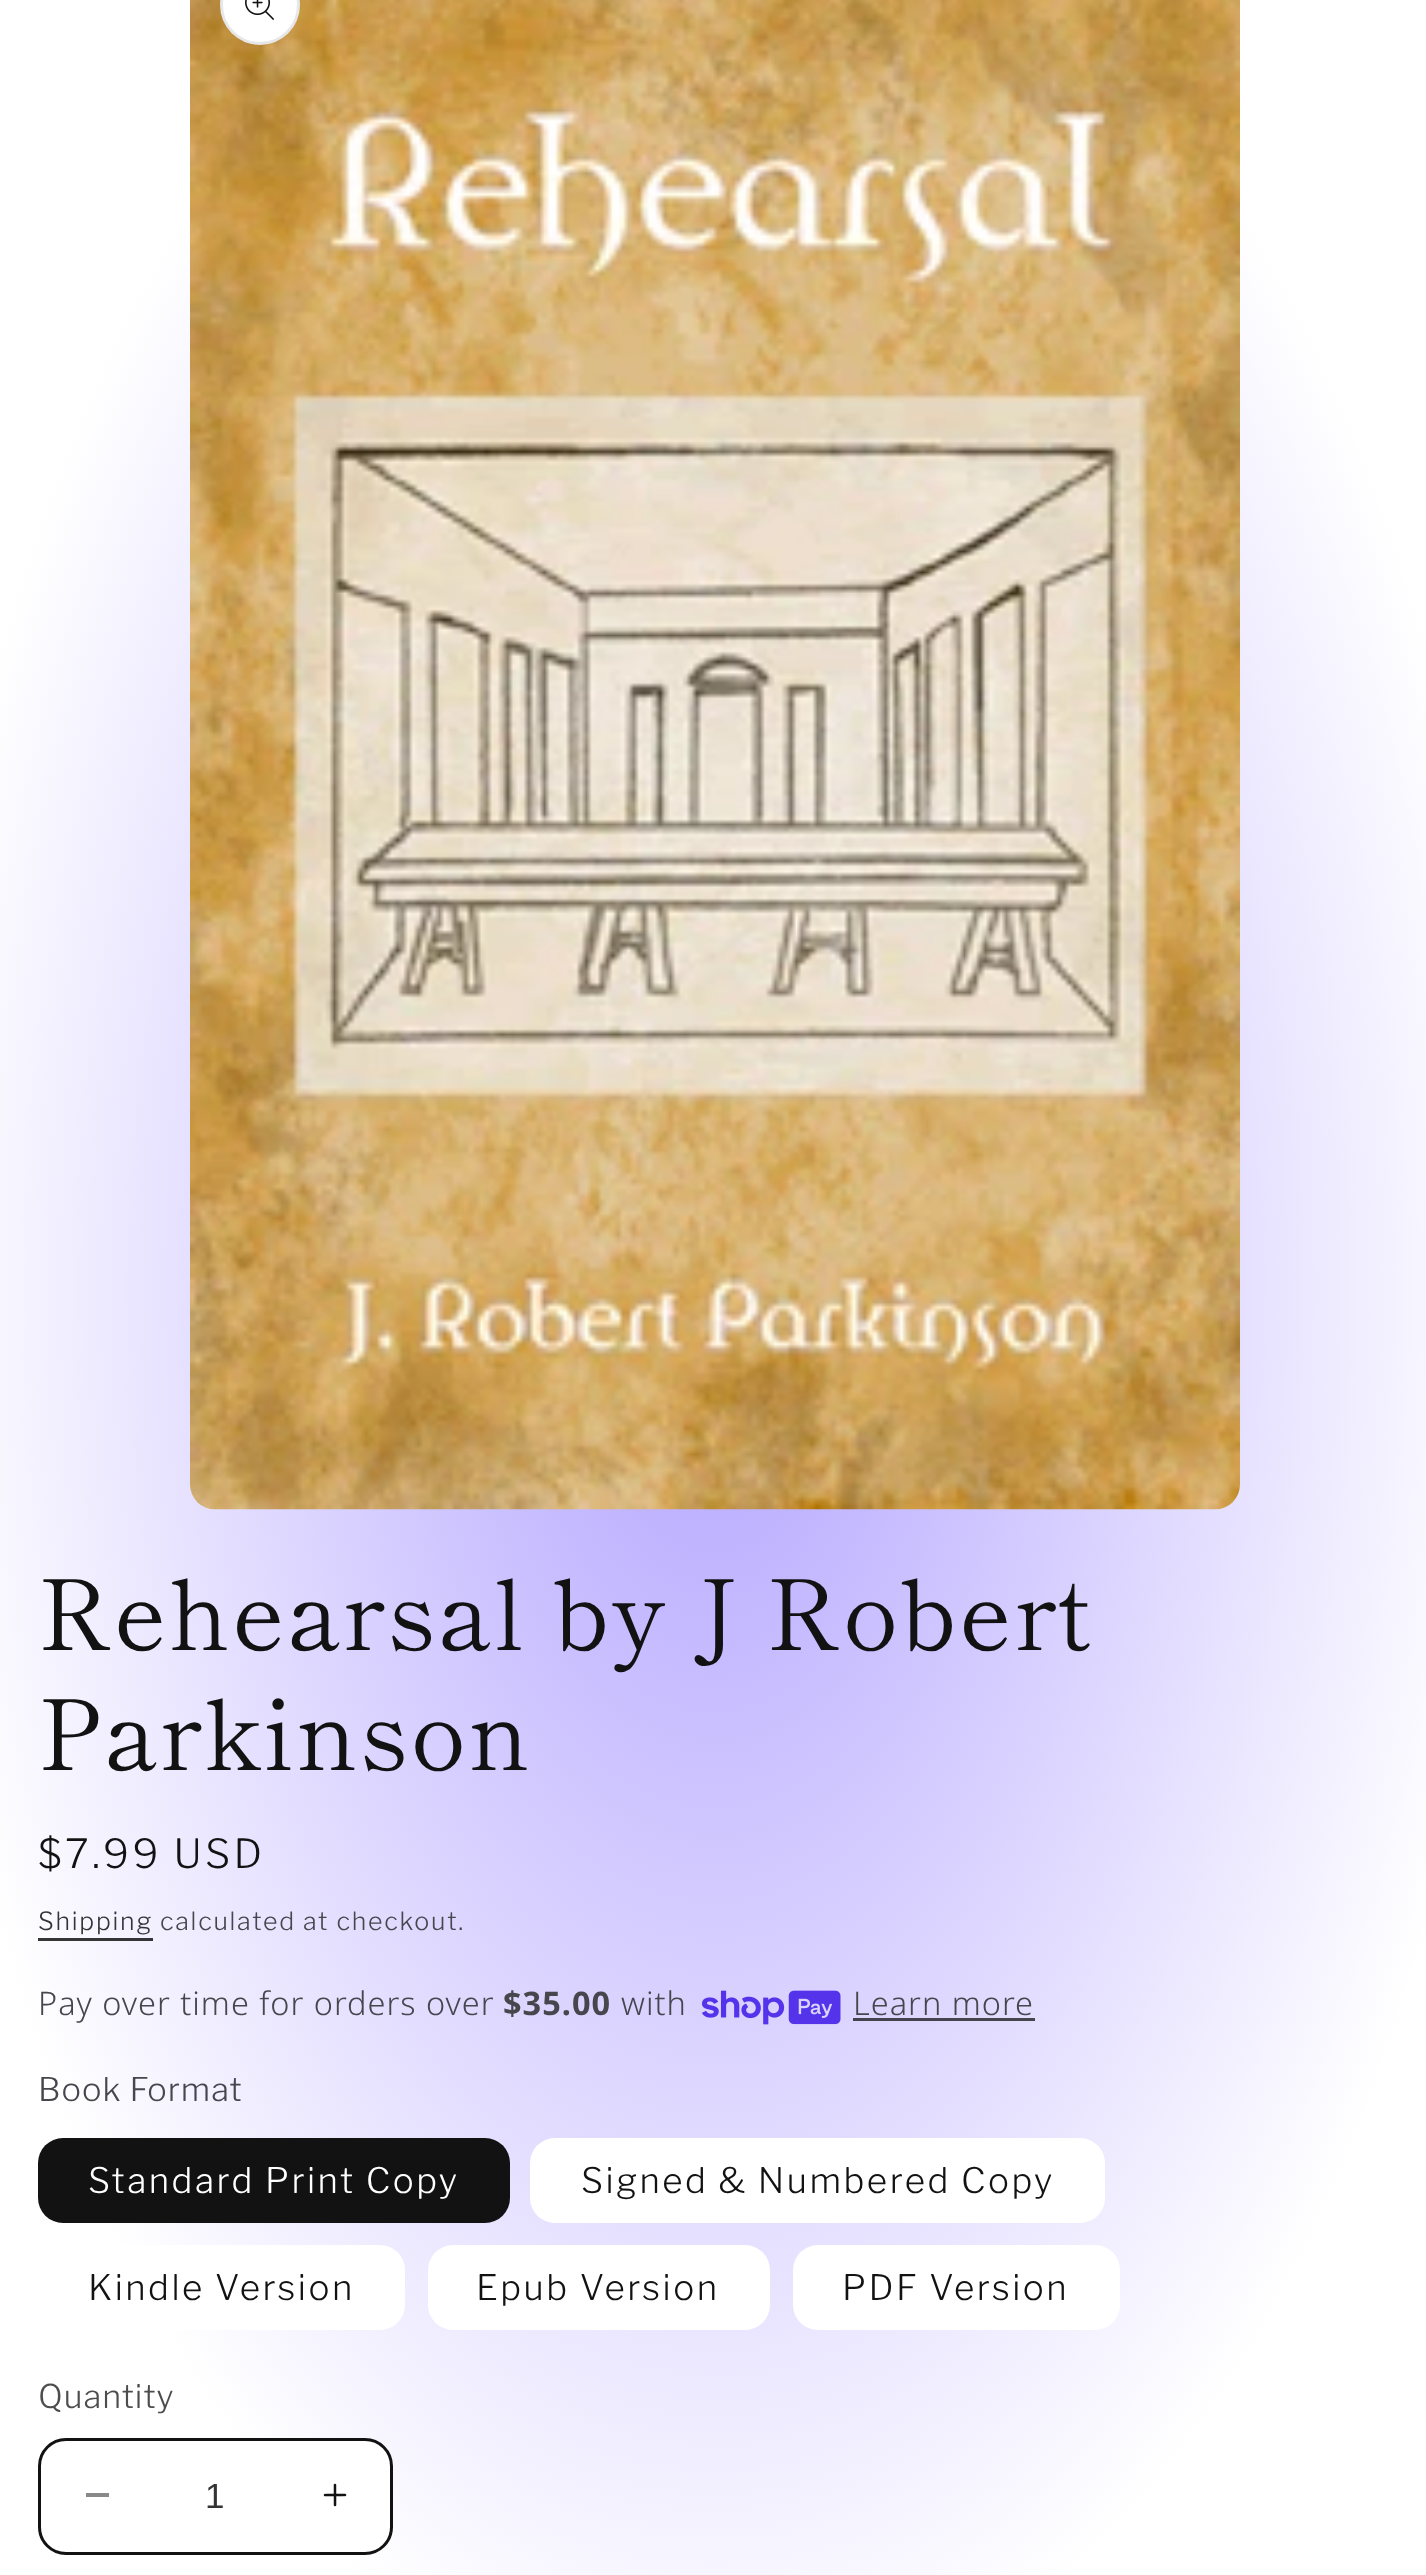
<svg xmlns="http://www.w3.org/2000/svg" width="1426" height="2575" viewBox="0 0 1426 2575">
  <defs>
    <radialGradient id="g1" gradientUnits="userSpaceOnUse" cx="0" cy="0" r="1" gradientTransform="matrix(1009 0 0 1821 714 1288)"><stop offset="0" stop-color="rgb(179,164,255)"/><stop offset="0.79" stop-color="rgb(255,255,255)"/><stop offset="0.97" stop-color="rgb(255,255,255)"/></radialGradient>
    <radialGradient id="g2" gradientUnits="userSpaceOnUse" cx="0" cy="0" r="1" gradientTransform="matrix(1009 0 0 1821 714 1288)"><stop offset="0" stop-color="rgb(58,55,77)"/><stop offset="0.79" stop-color="rgb(77,77,77)"/><stop offset="0.97" stop-color="rgb(77,77,77)"/></radialGradient>
    <radialGradient id="g3" gradientUnits="userSpaceOnUse" cx="0" cy="0" r="1" gradientTransform="matrix(1009 0 0 1821 714 1288)"><stop offset="0" stop-color="rgb(42,40,54)"/><stop offset="0.79" stop-color="rgb(54,54,54)"/><stop offset="0.97" stop-color="rgb(54,54,54)"/></radialGradient>
  </defs>
  <rect width="100%" height="100%" fill="rgb(255,255,255)"/>
  <rect x="0" y="0" width="1426" height="2575" fill="url(#g1)"/>
  <rect x="853" y="2018" width="182" height="3" fill="url(#g2)"/>
  <rect x="38" y="1938" width="115" height="3" fill="url(#g3)"/>
  <image x="190" y="0" width="1050" height="1510" href="pic2.png"/>
  <circle cx="260" cy="5" r="40" fill="rgb(255,255,255)"/>
  <circle cx="260" cy="5" r="38.5" fill="none" stroke="rgba(18,18,18,0.1)" stroke-width="3"/>
  <image x="245" y="0" width="29" height="20" href="pic1.png"/>
  <g font-family="Shippori Mincho" font-size="97.5" letter-spacing="1.95" fill="rgb(18,18,18)">
    <text>
      <tspan x="38" y="1650">Rehearsal by J Robert</tspan>
      <tspan x="38" y="1770">Parkinson</tspan>
    </text>
  </g>
  <text x="38" y="1868" font-family="Libre Franklin" font-size="40" font-weight="300" letter-spacing="3.25" fill="rgb(18,18,18)">$7.99 USD</text>
  <text x="38" y="1930" font-family="Libre Franklin" font-size="25" font-weight="300" letter-spacing="1.75" fill="rgb(52,52,54)">Shipping</text>
  <text x="160" y="1930" font-family="Libre Franklin" font-size="25" font-weight="300" letter-spacing="1.75" fill="rgb(71,70,77)">calculated at checkout.</text>
  <text x="38" y="2015" font-family="Noto Sans" font-size="32.5" font-weight="300" letter-spacing="1" fill="rgb(71,70,77)">Pay over time for orders over</text>
  <text x="503" y="2015" font-family="Noto Sans" font-size="32.5" font-weight="bold" letter-spacing="1" fill="rgb(71,70,77)">$35.00</text>
  <text x="621" y="2015" font-family="Noto Sans" font-size="32.5" font-weight="300" letter-spacing="1" fill="rgb(71,70,77)">with</text>
  <image x="702" y="1990" width="139" height="35" href="pic3.png"/>
  <text x="853" y="2015" font-family="Noto Sans" font-size="32.5" font-weight="300" letter-spacing="1" fill="rgb(71,70,77)">Learn more</text>
  <text x="38" y="2101" font-family="Libre Franklin" font-size="32.5" font-weight="300" letter-spacing="1" fill="rgb(71,70,77)">Book Format</text>
  <rect x="38" y="2138" width="472" height="85" rx="25" fill="rgb(18,18,18)"/>
  <text x="88" y="2193" font-family="Libre Franklin" font-size="35" font-weight="300" letter-spacing="2.5" fill="rgb(255,255,255)">Standard Print Copy</text>
  <rect x="530" y="2138" width="575" height="85" rx="25" fill="rgb(255,255,255)"/>
  <text x="581" y="2193" font-family="Libre Franklin" font-size="35" font-weight="300" letter-spacing="2.5" fill="rgb(18,18,18)">Signed &amp; Numbered Copy</text>
  <rect x="38" y="2245" width="367" height="85" rx="25" fill="rgb(255,255,255)"/>
  <text x="88" y="2300" font-family="Libre Franklin" font-size="35" font-weight="300" letter-spacing="2.5" fill="rgb(18,18,18)">Kindle Version</text>
  <rect x="428" y="2245" width="342" height="85" rx="25" fill="rgb(255,255,255)"/>
  <text x="476" y="2300" font-family="Libre Franklin" font-size="35" font-weight="300" letter-spacing="2.5" fill="rgb(18,18,18)">Epub Version</text>
  <rect x="793" y="2245" width="327" height="85" rx="25" fill="rgb(255,255,255)"/>
  <text x="842" y="2300" font-family="Libre Franklin" font-size="35" font-weight="300" letter-spacing="2.5" fill="rgb(18,18,18)">PDF Version</text>
  <text x="38" y="2408" font-family="Libre Franklin" font-size="32.5" font-weight="300" letter-spacing="1" fill="rgb(77,77,77)">Quantity</text>
  <rect x="38" y="2438" width="355" height="117" rx="28" fill="rgb(255,255,255)"/>
  <rect x="86" y="2493" width="23" height="4" fill="rgb(137,137,137)"/>
  <image x="323" y="2483" width="24" height="24" href="pic4.png"/>
  <rect x="39.5" y="2439.5" width="352" height="114" rx="26.5" fill="none" stroke="rgb(18,18,18)" stroke-width="3"/>
  <text x="205" y="2508" font-family="Liberation Sans" font-size="35" fill="rgb(52,52,54)">1</text>
</svg>
